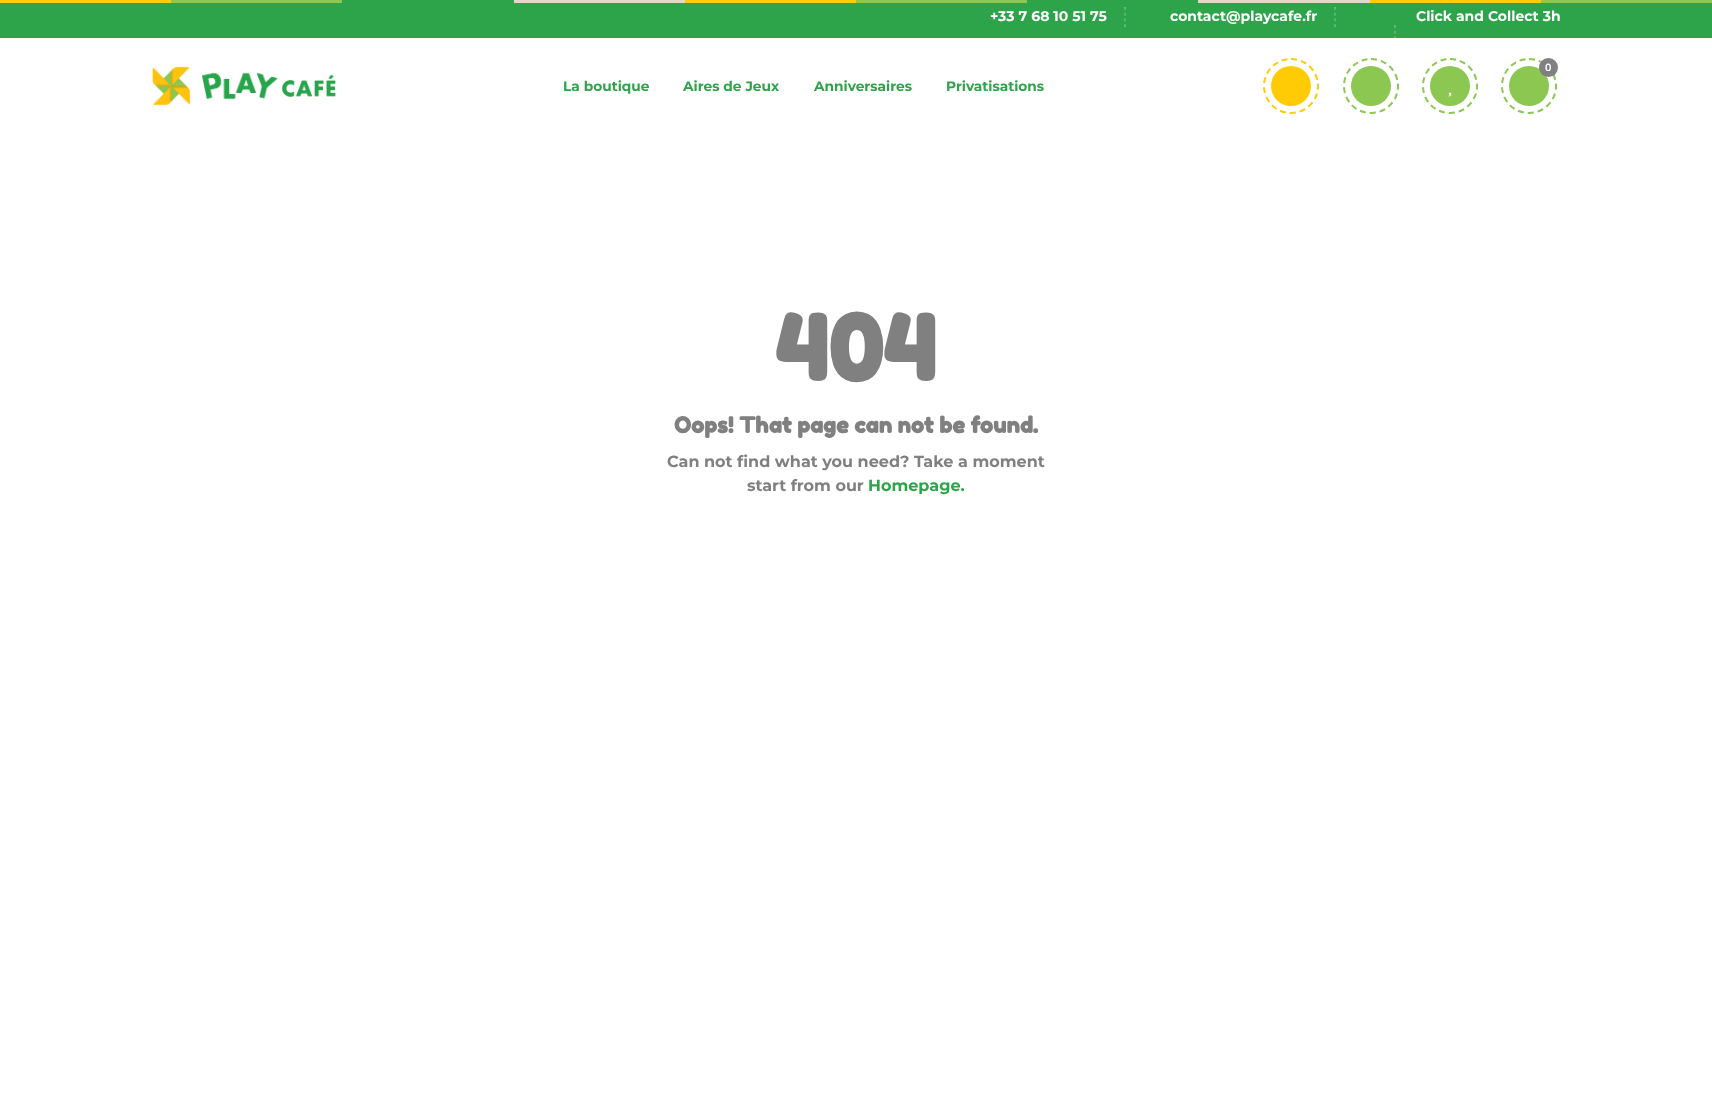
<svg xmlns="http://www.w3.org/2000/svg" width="1712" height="1119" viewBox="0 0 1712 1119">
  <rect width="100%" height="100%" fill="rgb(255,255,255)"/>
  <rect x="0" y="0" width="171" height="3" fill="rgb(255,203,5)"/>
  <rect x="171" y="0" width="171" height="3" fill="rgb(139,199,81)"/>
  <rect x="342" y="0" width="172" height="3" fill="rgb(45,164,74)"/>
  <rect x="514" y="0" width="171" height="3" fill="rgb(226,218,201)"/>
  <rect x="685" y="0" width="171" height="3" fill="rgb(255,203,5)"/>
  <rect x="856" y="0" width="171" height="3" fill="rgb(139,199,81)"/>
  <rect x="1027" y="0" width="171" height="3" fill="rgb(45,164,74)"/>
  <rect x="1198" y="0" width="172" height="3" fill="rgb(226,218,201)"/>
  <rect x="1370" y="0" width="171" height="3" fill="rgb(255,203,5)"/>
  <rect x="1541" y="0" width="171" height="3" fill="rgb(139,199,81)"/>
  <rect x="0" y="3" width="1712" height="35" fill="rgb(45,164,74)"/>
  <text x="990" y="21" font-family="Montserrat" font-size="14" font-weight="100" fill="rgb(255,255,255)">+33 7 68 10 51 75</text>
  <path d="M1124 7H1126L1125 8Z" fill="rgb(87,182,110)"/>
  <path d="M1125.5 7V27" fill="none" stroke="rgba(255,255,255,0.2)" stroke-dasharray="3 2.67"/>
  <path d="M1126 27H1124L1125 26Z" fill="rgba(255,255,255,0.2)"/>
  <path d="M1124.5 7V27" fill="none" stroke="rgba(255,255,255,0.2)" stroke-dasharray="3 2.67"/>
  <text x="1170" y="21" font-family="Montserrat" font-size="14" font-weight="100" fill="rgb(255,255,255)">contact@playcafe.fr</text>
  <path d="M1334 7H1336L1335 8Z" fill="rgb(87,182,110)"/>
  <path d="M1335.5 7V27" fill="none" stroke="rgba(255,255,255,0.2)" stroke-dasharray="3 2.67"/>
  <path d="M1336 27H1334L1335 26Z" fill="rgba(255,255,255,0.2)"/>
  <path d="M1334.5 7V27" fill="none" stroke="rgba(255,255,255,0.2)" stroke-dasharray="3 2.67"/>
  <text x="1416" y="21" font-family="Montserrat" font-size="14" font-weight="100" fill="rgb(255,255,255)">Click and Collect 3h</text>
  <path d="M1394 25H1396L1395 26Z" fill="rgb(87,182,110)"/>
  <path d="M1395.5 25V45M1394.5 25V45" fill="none" stroke="rgba(255,255,255,0.2)" stroke-dasharray="3 2.67"/>
  <image x="152" y="66" width="184" height="40" href="pic1.png"/>
  <g font-family="Montserrat" font-size="13.75" font-weight="100" fill="rgb(45,164,74)">
    <text x="563" y="91">La boutique</text>
    <text x="683" y="91">Aires de Jeux</text>
    <text x="814" y="91">Anniversaires</text>
    <text x="946" y="91">Privatisations</text>
  </g>
  <circle cx="1291" cy="86" r="20" fill="rgb(255,203,5)"/>
  <path d="M1291 59C1306 59 1318 71 1318 86C1318 101 1306 113 1291 113C1276 113 1264 101 1264 86C1264 71 1276 59 1291 59Z" fill="none" stroke="rgb(255,203,5)" stroke-width="2" stroke-dasharray="6 4"/>
  <circle cx="1371" cy="86" r="20" fill="rgb(139,199,81)"/>
  <path d="M1371 59C1386 59 1398 71 1398 86C1398 101 1386 113 1371 113C1356 113 1344 101 1344 86C1344 71 1356 59 1371 59Z" fill="none" stroke="rgb(139,199,81)" stroke-width="2" stroke-dasharray="6 4"/>
  <circle cx="1450" cy="86" r="20" fill="rgb(139,199,81)"/>
  <image x="1448" y="92" width="4" height="5" href="pic2.png"/>
  <path d="M1450 59C1465 59 1477 71 1477 86C1477 101 1465 113 1450 113C1435 113 1423 101 1423 86C1423 71 1435 59 1450 59Z" fill="none" stroke="rgb(139,199,81)" stroke-width="2" stroke-dasharray="6 4"/>
  <circle cx="1529" cy="86" r="20" fill="rgb(139,199,81)"/>
  <path d="M1529 59C1544 59 1556 71 1556 86C1556 101 1544 113 1529 113C1514 113 1502 101 1502 86C1502 71 1514 59 1529 59Z" fill="none" stroke="rgb(139,199,81)" stroke-width="2" stroke-dasharray="6 4"/>
  <circle cx="1548.5" cy="67.5" r="9.5" fill="rgb(128,128,128)"/>
  <text x="1545" y="71" font-family="'Rounded Mplus 1c'" font-size="10" font-weight="bold" fill="rgb(255,255,255)">0</text>
  <text x="775" y="381" font-family="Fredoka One" font-size="90" font-weight="bold" fill="rgb(128,128,128)">404</text>
  <text x="674" y="433" font-family="Fredoka One" font-size="22" font-weight="bold" fill="rgb(128,128,128)">Oops! That page can not be found.</text>
  <g font-family="Montserrat" font-size="16" font-weight="100" fill="rgb(128,128,128)">
    <text x="667" y="467">Can not find what you need? Take a moment</text>
    <text x="747" y="491">start from our</text>
  </g>
  <text x="868" y="491" font-family="Montserrat" font-size="16" font-weight="100" fill="rgb(45,164,74)">Homepage.</text>
</svg>
